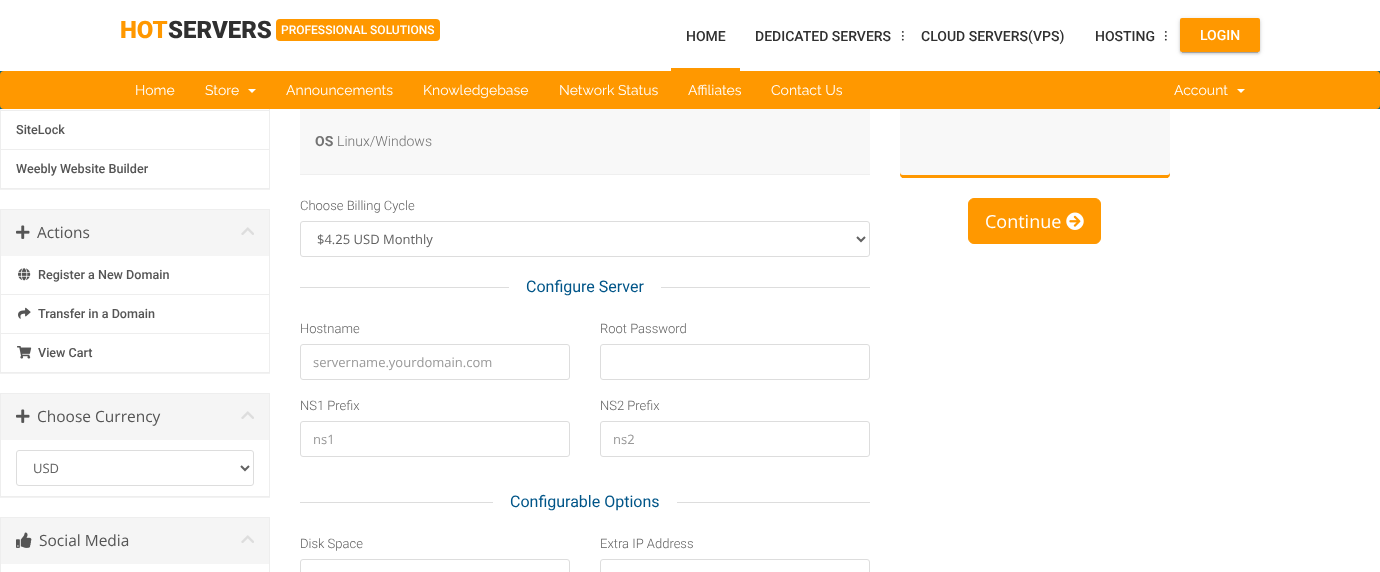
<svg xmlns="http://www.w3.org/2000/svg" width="1380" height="572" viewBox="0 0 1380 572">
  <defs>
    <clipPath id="clip1"><rect x="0" y="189" width="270" height="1"/></clipPath>
    <clipPath id="clip2"><rect x="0" y="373" width="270" height="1"/></clipPath>
    <clipPath id="clip3"><rect x="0" y="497" width="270" height="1"/></clipPath>
  </defs>
  <rect width="100%" height="100%" fill="rgb(255,255,255)"/>
  <g clip-path="url(#clip1)">
    <rect x="0" y="-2" width="270" height="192" fill="rgba(0,0,0,0.05)" filter="blur(0.5px)"/>
  </g>
  <rect x="0.5" y="-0.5" width="269" height="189" fill="none" stroke="rgb(238,238,238)"/>
  <rect x="900" y="15" width="270" height="163" rx="4" fill="rgb(255,152,0)"/>
  <rect x="0" y="0" width="1170" height="71" fill="rgb(255,255,255)"/>
  <text x="120" y="38" font-family="Roboto" font-size="24" font-weight="900" fill="rgb(255,152,0)">HOT</text>
  <text x="168" y="38" font-family="Roboto" font-size="24" font-weight="900" fill="rgb(48,48,48)">SERVERS</text>
  <rect x="276" y="19" width="164" height="22" rx="4" fill="rgb(255,152,0)"/>
  <text x="281" y="34" font-family="Roboto" font-size="12" font-weight="500" fill="rgb(255,255,255)">PROFESSIONAL SOLUTIONS</text>
  <rect x="671" y="68" width="69" height="3" fill="rgb(255,152,0)"/>
  <g font-family="Roboto" font-size="14" font-weight="500" fill="rgb(48,48,48)">
    <text x="686" y="41">HOME</text>
    <text x="755" y="41">DEDICATED SERVERS</text>
    <text x="902" y="30" transform="rotate(90 902 30)">...</text>
    <text x="921" y="41">CLOUD SERVERS(VPS)</text>
    <text x="1095" y="41">HOSTING</text>
    <text x="1165" y="30" transform="rotate(90 1165 30)">...</text>
  </g>
  <rect x="1180" y="19" width="80" height="34" rx="2" fill="rgba(0,0,0,0.12)" filter="blur(2.5px)"/>
  <rect x="1182" y="23" width="76" height="30" fill="rgba(0,0,0,0.2)" filter="blur(0.5px)"/>
  <rect x="1180" y="20" width="80" height="34" rx="2" fill="rgba(0,0,0,0.14)" filter="blur(1px)"/>
  <rect x="1180" y="18" width="80" height="34" rx="2" fill="rgb(255,152,0)"/>
  <text x="1200" y="40" font-family="Roboto" font-size="14" font-weight="500" fill="rgb(255,255,255)">LOGIN</text>
  <rect x="900" y="75" width="270" height="100" rx="3" fill="rgb(248,248,248)"/>
  <rect x="0" y="71" width="1380" height="38" fill="rgb(0,102,135)"/>
  <rect x="0" y="71" width="1380" height="38" rx="4" fill="rgb(255,152,0)"/>
  <g font-family="Raleway" font-size="14" fill="rgb(255,255,255)">
    <text x="135" y="95">Home</text>
    <text x="205" y="95">Store</text>
  </g>
  <path d="M248 89H256L252 93Z" fill="rgb(255,255,255)"/>
  <g font-family="Raleway" font-size="14" fill="rgb(255,255,255)">
    <text x="286" y="95">Announcements</text>
    <text x="423" y="95">Knowledgebase</text>
    <text x="559" y="95">Network Status</text>
    <text x="688" y="95">Affiliates</text>
    <text x="771" y="95">Contact Us</text>
    <text x="1174" y="95">Account</text>
  </g>
  <path d="M1237 89H1245L1241 93Z" fill="rgb(255,255,255)"/>
  <rect x="1" y="110" width="268" height="1" fill="rgb(238,238,238)"/>
  <text x="16" y="134" font-family="Roboto" font-size="12.6" font-weight="500" fill="rgb(85,85,85)">SiteLock</text>
  <rect x="1" y="149" width="268" height="1" fill="rgb(238,238,238)"/>
  <text x="16" y="173" font-family="Roboto" font-size="12.6" font-weight="500" fill="rgb(85,85,85)">Weebly Website Builder</text>
  <g clip-path="url(#clip2)">
    <rect x="0" y="210" width="270" height="164" fill="rgba(0,0,0,0.05)" filter="blur(0.5px)"/>
  </g>
  <rect x="0.5" y="209.5" width="269" height="163" fill="none" stroke="rgb(238,238,238)"/>
  <rect x="1" y="210" width="268" height="46" fill="rgb(245,245,245)"/>
  <image x="16" y="225" width="14" height="14" href="pic1.png"/>
  <text x="37" y="238" font-family="Open Sans" font-size="15.5" fill="rgb(85,85,85)">Actions</text>
  <image x="241" y="227" width="13" height="8" href="pic2.png"/>
  <rect x="1" y="294" width="268" height="1" fill="rgb(238,238,238)"/>
  <image x="18" y="268" width="13" height="13" href="pic3.png"/>
  <text x="38" y="279" font-family="Roboto" font-size="12.6" font-weight="500" fill="rgb(85,85,85)">Register a New Domain</text>
  <image x="18" y="307" width="13" height="12" href="pic4.png"/>
  <text x="38" y="318" font-family="Roboto" font-size="12.6" font-weight="500" fill="rgb(85,85,85)">Transfer in a Domain</text>
  <rect x="1" y="333" width="268" height="1" fill="rgb(238,238,238)"/>
  <image x="17" y="346" width="15" height="13" href="pic5.png"/>
  <text x="38" y="357" font-family="Roboto" font-size="12.6" font-weight="500" fill="rgb(85,85,85)">View Cart</text>
  <g clip-path="url(#clip3)">
    <rect x="0" y="394" width="270" height="104" fill="rgba(0,0,0,0.05)" filter="blur(0.5px)"/>
  </g>
  <rect x="0.5" y="393.5" width="269" height="103" fill="none" stroke="rgb(238,238,238)"/>
  <rect x="1" y="394" width="268" height="46" fill="rgb(245,245,245)"/>
  <image x="16" y="409" width="14" height="14" href="pic1.png"/>
  <text x="37" y="422" font-family="Open Sans" font-size="15.5" fill="rgb(85,85,85)">Choose Currency</text>
  <image x="241" y="411" width="13" height="8" href="pic2.png"/>
  <rect x="16.5" y="450.5" width="237" height="35" rx="2.5" fill="none" stroke="rgb(221,221,221)"/>
  <path d="M241 466L245 470L249 466" fill="none" stroke="rgb(98,98,98)" stroke-width="2"/>
  <text x="33" y="473" font-family="Open Sans" font-size="13" fill="rgb(98,98,98)">USD</text>
  <rect x="0.5" y="517.5" width="269" height="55" fill="none" stroke="rgb(238,238,238)"/>
  <rect x="1" y="518" width="268" height="46" fill="rgb(245,245,245)"/>
  <image x="16" y="532" width="16" height="16" href="pic6.png"/>
  <text x="39" y="546" font-family="Open Sans" font-size="15.5" fill="rgb(85,85,85)">Social Media</text>
  <image x="241" y="535" width="13" height="8" href="pic2.png"/>
  <rect x="300" y="109" width="570" height="65" fill="rgb(248,248,248)"/>
  <rect x="300" y="174" width="570" height="1" fill="rgb(239,239,239)"/>
  <text x="315" y="146" font-family="Roboto" font-size="14" font-weight="bold" fill="rgb(115,115,115)">OS</text>
  <text x="337" y="146" font-family="Roboto" font-size="14" font-weight="300" fill="rgb(115,115,115)">Linux/Windows</text>
  <text x="300" y="210" font-family="Roboto" font-size="13" font-weight="300" fill="rgb(98,98,98)">Choose Billing Cycle</text>
  <rect x="300.5" y="221.5" width="569" height="35" rx="2.5" fill="none" stroke="rgb(221,221,221)"/>
  <path d="M857 237L861 241L865 237" fill="none" stroke="rgb(98,98,98)" stroke-width="2"/>
  <text x="317" y="244" font-family="Open Sans" font-size="13" fill="rgb(98,98,98)">$4.25 USD Monthly</text>
  <rect x="300" y="287" width="570" height="1" fill="rgb(221,221,221)"/>
  <rect x="509" y="287" width="152" height="1" fill="rgb(255,255,255)"/>
  <text x="526" y="292" font-family="Roboto" font-size="16" fill="rgb(0,85,136)">Configure Server</text>
  <text x="300" y="333" font-family="Roboto" font-size="13" font-weight="300" fill="rgb(98,98,98)">Hostname</text>
  <rect x="300.5" y="344.5" width="269" height="35" rx="2.5" fill="none" stroke="rgb(221,221,221)"/>
  <text x="313" y="367" font-family="Open Sans" font-size="13" fill="rgb(153,153,153)">servername.yourdomain.com</text>
  <text x="600" y="333" font-family="Roboto" font-size="13" font-weight="300" fill="rgb(98,98,98)">Root Password</text>
  <rect x="600.5" y="344.5" width="269" height="35" rx="2.5" fill="none" stroke="rgb(221,221,221)"/>
  <text x="300" y="410" font-family="Roboto" font-size="13" font-weight="300" fill="rgb(98,98,98)">NS1 Prefix</text>
  <rect x="300.5" y="421.5" width="269" height="35" rx="2.5" fill="none" stroke="rgb(221,221,221)"/>
  <text x="313" y="444" font-family="Open Sans" font-size="13" fill="rgb(153,153,153)">ns1</text>
  <text x="600" y="410" font-family="Roboto" font-size="13" font-weight="300" fill="rgb(98,98,98)">NS2 Prefix</text>
  <rect x="600.5" y="421.5" width="269" height="35" rx="2.5" fill="none" stroke="rgb(221,221,221)"/>
  <text x="613" y="444" font-family="Open Sans" font-size="13" fill="rgb(153,153,153)">ns2</text>
  <rect x="300" y="502" width="570" height="1" fill="rgb(221,221,221)"/>
  <rect x="493" y="502" width="184" height="1" fill="rgb(255,255,255)"/>
  <text x="510" y="507" font-family="Roboto" font-size="16" fill="rgb(0,85,136)">Configurable Options</text>
  <text x="300" y="548" font-family="Roboto" font-size="13" font-weight="300" fill="rgb(98,98,98)">Disk Space</text>
  <rect x="300.5" y="559.5" width="269" height="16" rx="2.5" fill="none" stroke="rgb(221,221,221)"/>
  <text x="600" y="548" font-family="Roboto" font-size="13" font-weight="300" fill="rgb(98,98,98)">Extra IP Address</text>
  <rect x="600.5" y="559.5" width="269" height="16" rx="2.5" fill="none" stroke="rgb(221,221,221)"/>
  <rect x="902" y="177" width="266" height="1" fill="rgb(255,152,0)"/>
  <rect x="968.5" y="198.5" width="132" height="45" rx="5.5" fill="rgb(255,152,0)" stroke="rgb(255,152,0)"/>
  <text x="985" y="228" font-family="Open Sans" font-size="18" fill="rgb(255,255,255)">Continue</text>
  <image x="1066" y="212" width="18" height="18" href="pic7.png"/>
</svg>
